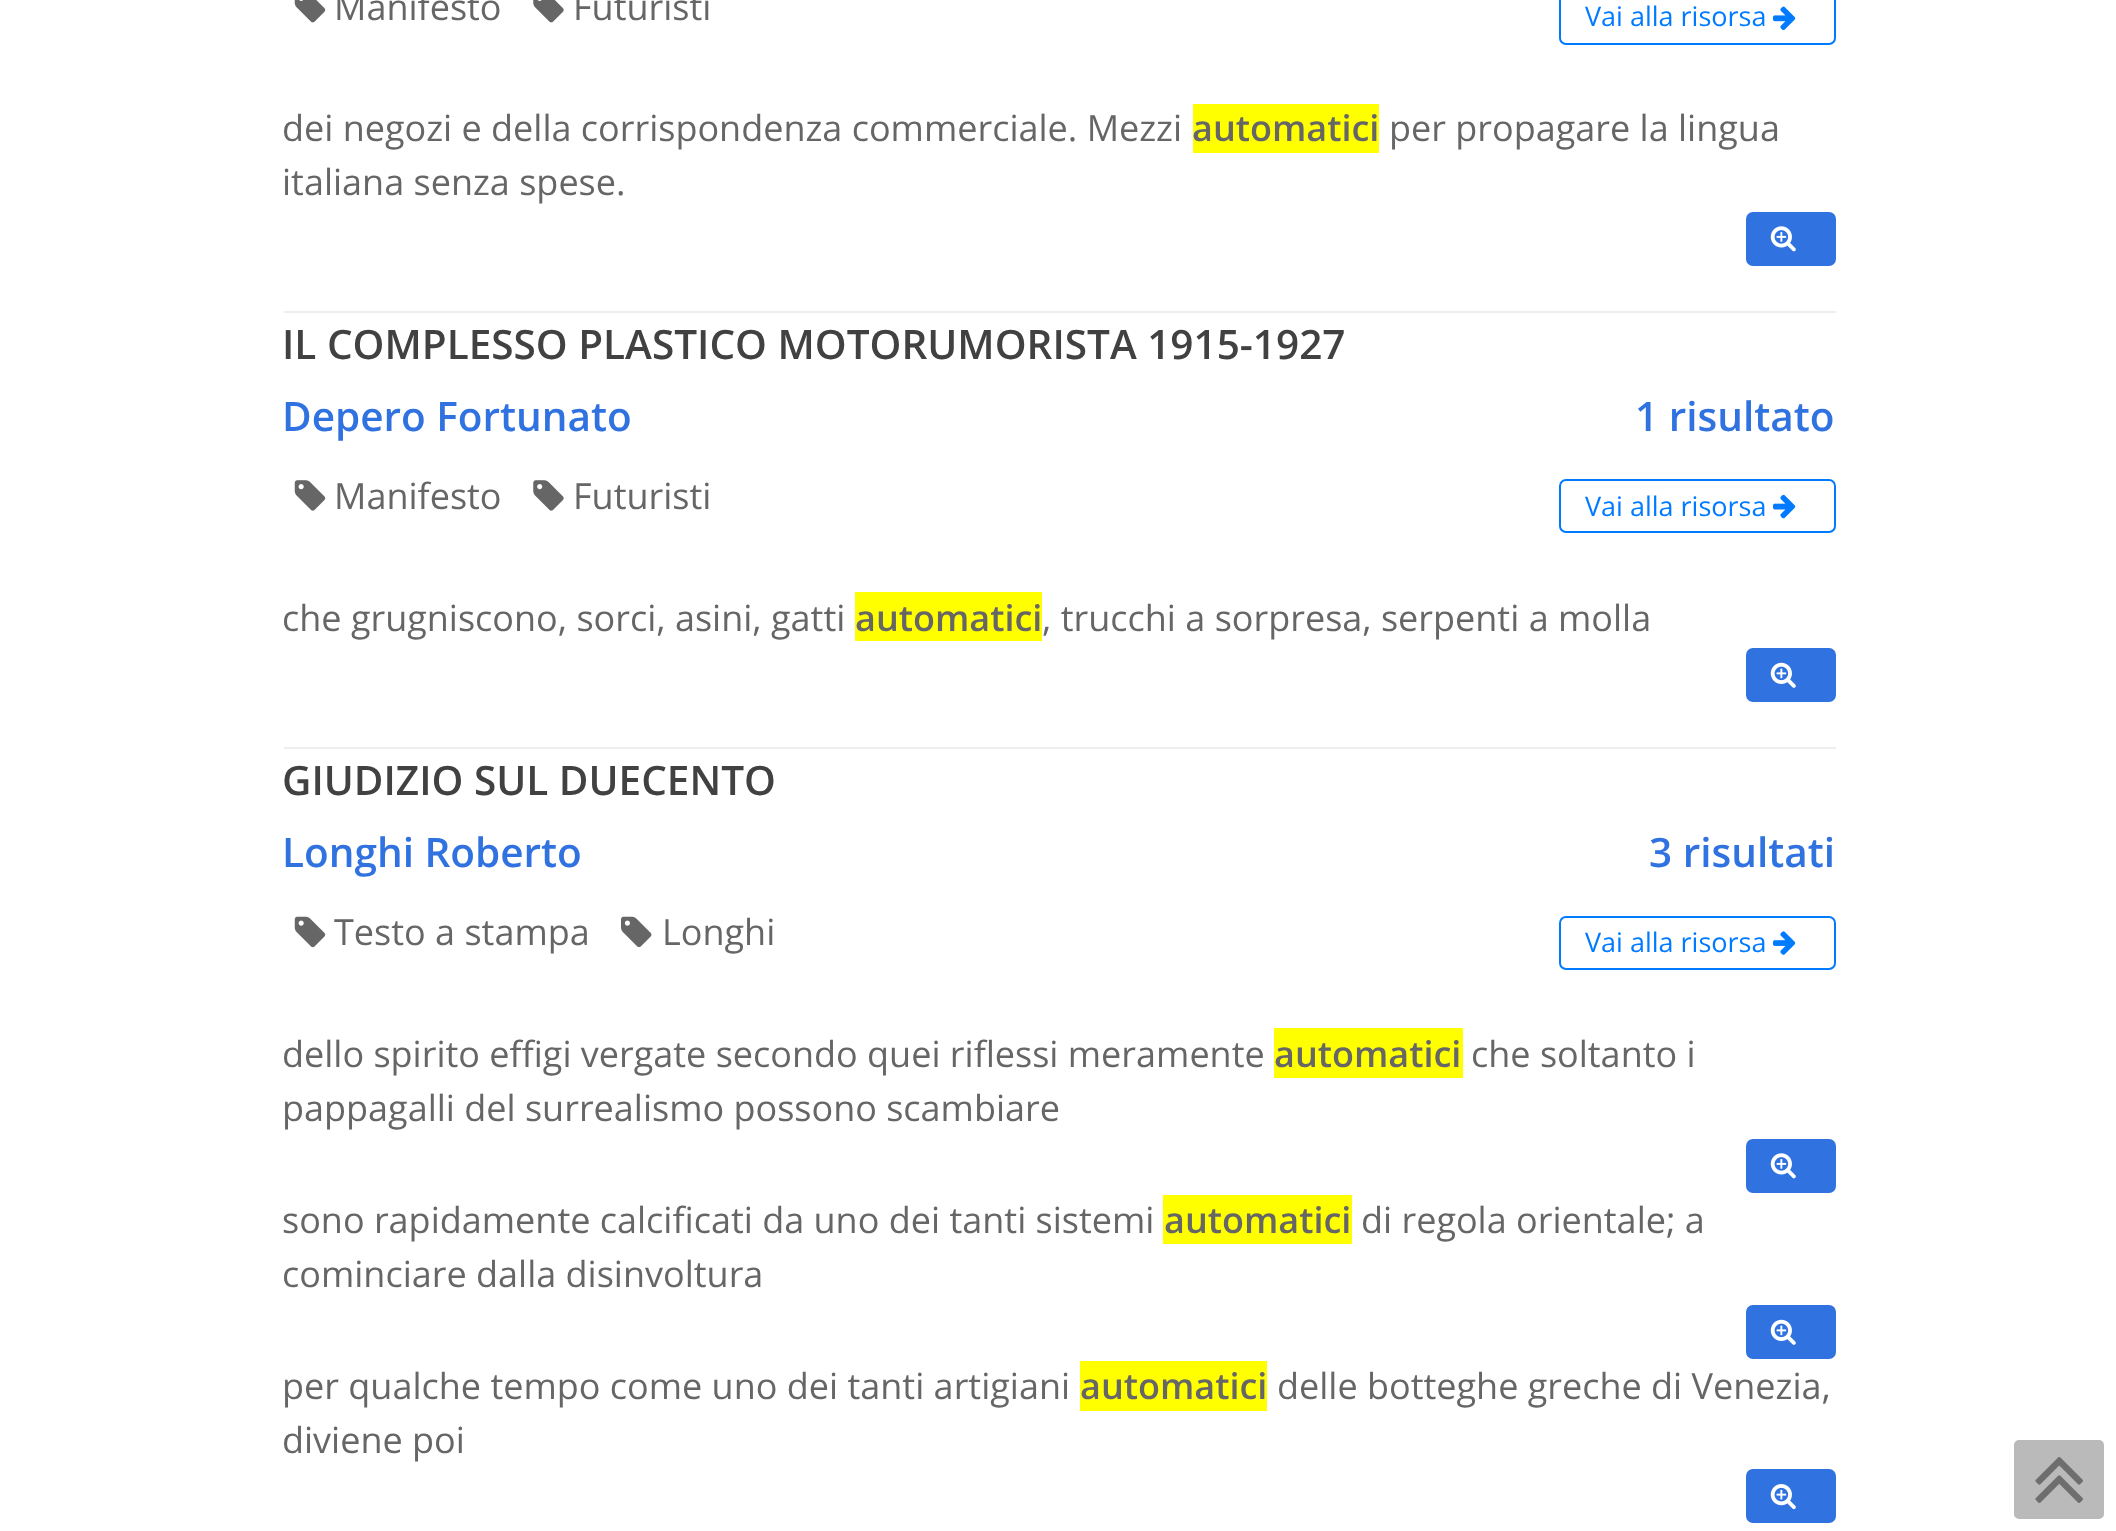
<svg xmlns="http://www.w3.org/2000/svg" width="2116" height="1531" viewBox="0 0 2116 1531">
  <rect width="100%" height="100%" fill="rgb(255,255,255)"/>
  <rect x="284" y="311" width="1552" height="2" fill="rgb(238,238,238)"/>
  <image x="294" y="0" width="32" height="23" href="pic1.png"/>
  <text x="334" y="20" font-family="Open Sans" font-size="36" fill="rgb(102,102,102)">Manifesto</text>
  <image x="533" y="0" width="31" height="23" href="pic2.png"/>
  <text x="573" y="20" font-family="Open Sans" font-size="36" fill="rgb(102,102,102)">Futuristi</text>
  <rect x="1560" y="-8" width="275" height="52" rx="6" fill="none" stroke="rgb(0,123,255)" stroke-width="2"/>
  <text x="1585" y="26" font-family="Open Sans" font-size="27" fill="rgb(0,123,255)">Vai alla risorsa</text>
  <image x="1773" y="6" width="23" height="24" href="pic3.png"/>
  <text x="282" y="141" font-family="Open Sans" font-size="36" fill="rgb(102,102,102)">dei negozi e della corrispondenza commerciale. Mezzi</text>
  <rect x="1193" y="104" width="186" height="49" fill="rgb(255,255,0)"/>
  <text x="1192" y="141" font-family="Open Sans" font-size="36" font-weight="600" fill="rgb(102,102,102)">automatici</text>
  <g font-family="Open Sans" font-size="36" fill="rgb(102,102,102)">
    <text x="1389" y="141">per propagare la lingua</text>
    <text x="282" y="195">italiana senza spese.</text>
  </g>
  <rect x="1747" y="213" width="88" height="52" rx="6" fill="rgb(48,114,224)" stroke="rgb(48,114,224)" stroke-width="2"/>
  <image x="1770" y="226" width="26" height="26" href="pic4.png"/>
  <rect x="284" y="747" width="1552" height="2" fill="rgb(238,238,238)"/>
  <text x="282" y="359" font-family="Open Sans" font-size="40.5" font-weight="600" fill="rgb(65,65,65)">IL COMPLESSO PLASTICO MOTORUMORISTA 1915-1927</text>
  <g font-family="Open Sans" font-size="40.5" font-weight="600" fill="rgb(48,114,224)">
    <text x="282" y="431">Depero Fortunato</text>
    <text x="1635" y="431">1 risultato</text>
  </g>
  <image x="294" y="480" width="32" height="31" href="pic5.png"/>
  <text x="334" y="509" font-family="Open Sans" font-size="36" fill="rgb(102,102,102)">Manifesto</text>
  <image x="533" y="480" width="31" height="31" href="pic6.png"/>
  <text x="573" y="509" font-family="Open Sans" font-size="36" fill="rgb(102,102,102)">Futuristi</text>
  <rect x="1560" y="480" width="275" height="52" rx="6" fill="none" stroke="rgb(0,123,255)" stroke-width="2"/>
  <text x="1585" y="516" font-family="Open Sans" font-size="27" fill="rgb(0,123,255)">Vai alla risorsa</text>
  <image x="1773" y="494" width="23" height="25" href="pic7.png"/>
  <text x="282" y="631" font-family="Open Sans" font-size="36" fill="rgb(102,102,102)">che grugniscono, sorci, asini, gatti</text>
  <rect x="855" y="592" width="187" height="49" fill="rgb(255,255,0)"/>
  <text x="855" y="631" font-family="Open Sans" font-size="36" font-weight="600" fill="rgb(102,102,102)">automatici</text>
  <text x="1042" y="631" font-family="Open Sans" font-size="36" fill="rgb(102,102,102)">, trucchi a sorpresa, serpenti a molla</text>
  <rect x="1747" y="649" width="88" height="52" rx="6" fill="rgb(48,114,224)" stroke="rgb(48,114,224)" stroke-width="2"/>
  <image x="1770" y="662" width="26" height="26" href="pic8.png"/>
  <text x="282" y="795" font-family="Open Sans" font-size="40.5" font-weight="600" fill="rgb(65,65,65)">GIUDIZIO SUL DUECENTO</text>
  <g font-family="Open Sans" font-size="40.5" font-weight="600" fill="rgb(48,114,224)">
    <text x="282" y="867">Longhi Roberto</text>
    <text x="1649" y="867">3 risultati</text>
  </g>
  <image x="294" y="916" width="32" height="32" href="pic9.png"/>
  <text x="334" y="945" font-family="Open Sans" font-size="36" fill="rgb(102,102,102)">Testo a stampa</text>
  <image x="621" y="916" width="31" height="32" href="pic10.png"/>
  <text x="662" y="945" font-family="Open Sans" font-size="36" fill="rgb(102,102,102)">Longhi</text>
  <rect x="1560" y="917" width="275" height="52" rx="6" fill="none" stroke="rgb(0,123,255)" stroke-width="2"/>
  <text x="1585" y="952" font-family="Open Sans" font-size="27" fill="rgb(0,123,255)">Vai alla risorsa</text>
  <image x="1773" y="931" width="23" height="24" href="pic11.png"/>
  <text x="282" y="1067" font-family="Open Sans" font-size="36" fill="rgb(102,102,102)">dello spirito effigi vergate secondo quei riflessi meramente</text>
  <rect x="1274" y="1028" width="189" height="50" fill="rgb(255,255,0)"/>
  <text x="1274" y="1067" font-family="Open Sans" font-size="36" font-weight="600" fill="rgb(102,102,102)">automatici</text>
  <g font-family="Open Sans" font-size="36" fill="rgb(102,102,102)">
    <text x="1471" y="1067">che soltanto i</text>
    <text x="282" y="1121">pappagalli del surrealismo possono scambiare</text>
  </g>
  <rect x="1747" y="1140" width="88" height="52" rx="6" fill="rgb(48,114,224)" stroke="rgb(48,114,224)" stroke-width="2"/>
  <image x="1770" y="1153" width="26" height="26" href="pic4.png"/>
  <text x="282" y="1233" font-family="Open Sans" font-size="36" fill="rgb(102,102,102)">sono rapidamente calcificati da uno dei tanti sistemi</text>
  <rect x="1163" y="1195" width="189" height="49" fill="rgb(255,255,0)"/>
  <text x="1164" y="1233" font-family="Open Sans" font-size="36" font-weight="600" fill="rgb(102,102,102)">automatici</text>
  <g font-family="Open Sans" font-size="36" fill="rgb(102,102,102)">
    <text x="1361" y="1233">di regola orientale; a</text>
    <text x="282" y="1287">cominciare dalla disinvoltura</text>
  </g>
  <rect x="1747" y="1306" width="88" height="52" rx="6" fill="rgb(48,114,224)" stroke="rgb(48,114,224)" stroke-width="2"/>
  <image x="1770" y="1319" width="26" height="26" href="pic8.png"/>
  <text x="282" y="1399" font-family="Open Sans" font-size="36" fill="rgb(102,102,102)">per qualche tempo come uno dei tanti artigiani</text>
  <rect x="1080" y="1361" width="187" height="50" fill="rgb(255,255,0)"/>
  <text x="1080" y="1399" font-family="Open Sans" font-size="36" font-weight="600" fill="rgb(102,102,102)">automatici</text>
  <g font-family="Open Sans" font-size="36" fill="rgb(102,102,102)">
    <text x="1277" y="1399">delle botteghe greche di Venezia,</text>
    <text x="282" y="1453">diviene poi</text>
  </g>
  <rect x="1747" y="1470" width="88" height="52" rx="6" fill="rgb(48,114,224)" stroke="rgb(48,114,224)" stroke-width="2"/>
  <image x="1770" y="1484" width="26" height="26" href="pic12.png"/>
  <rect x="2014" y="1440" width="90" height="79" rx="5" fill="rgb(186,186,186)"/>
  <image x="2035" y="1457" width="48" height="46" href="pic13.png"/>
</svg>
